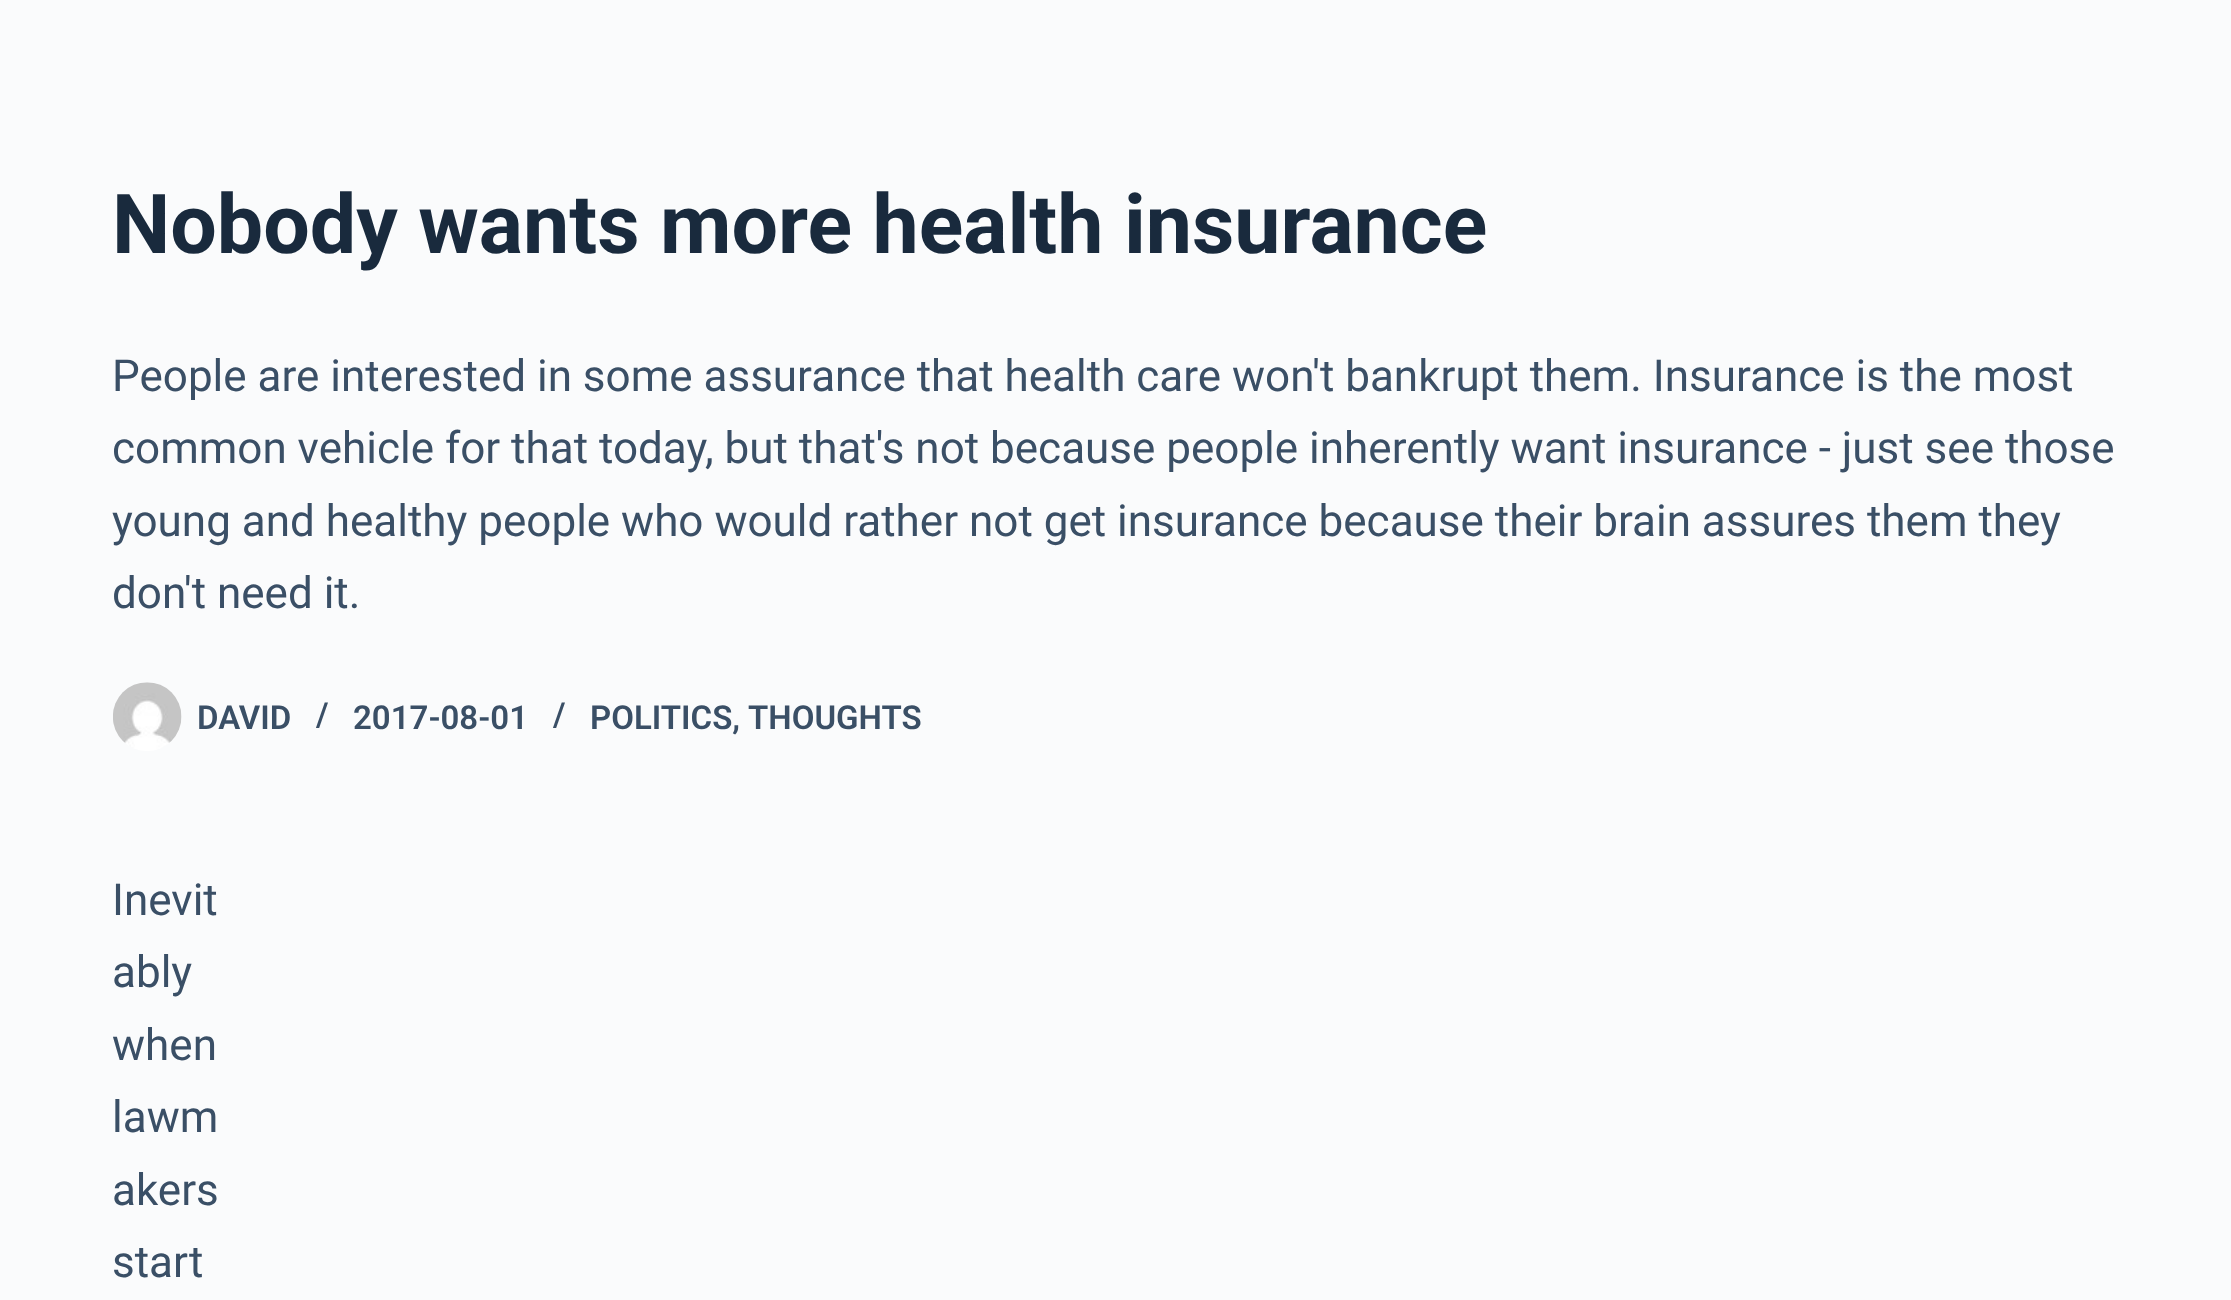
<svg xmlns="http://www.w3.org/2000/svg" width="2231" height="1300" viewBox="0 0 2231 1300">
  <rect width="100%" height="100%" fill="rgb(250,251,252)"/>
  <text x="112" y="253" font-family="Roboto" font-size="82.5" font-weight="bold" fill="rgb(25,42,61)">Nobody wants more health insurance</text>
  <g font-family="Roboto" font-size="44" fill="rgb(58,79,102)">
    <text>
      <tspan x="112" y="391">People are interested in some assurance that health care won't bankrupt them. Insurance is the most</tspan>
      <tspan x="112" y="463">common vehicle for that today, but that's not because people inherently want insurance - just see those</tspan>
      <tspan x="112" y="536">young and healthy people who would rather not get insurance because their brain assures them they</tspan>
      <tspan x="112" y="608">don't need it.</tspan>
    </text>
  </g>
  <image x="113" y="682" width="69" height="69" href="pic1.png"/>
  <g font-family="Roboto" font-size="33" font-weight="600" fill="rgb(58,79,102)">
    <text x="197" y="729">DAVID</text>
    <text x="316" y="726">/</text>
    <text x="353" y="729">2017-08-01</text>
    <text x="553" y="726">/</text>
    <text x="590" y="729">POLITICS,</text>
    <text x="748" y="729">THOUGHTS</text>
  </g>
  <g font-family="Roboto" font-size="44" fill="rgb(58,79,102)">
    <text>
      <tspan x="112" y="915">Inevit</tspan>
      <tspan x="112" y="987">ably</tspan>
      <tspan x="112" y="1060">when</tspan>
      <tspan x="112" y="1132">lawm</tspan>
      <tspan x="112" y="1205">akers</tspan>
      <tspan x="112" y="1277">start</tspan>
    </text>
  </g>
</svg>
